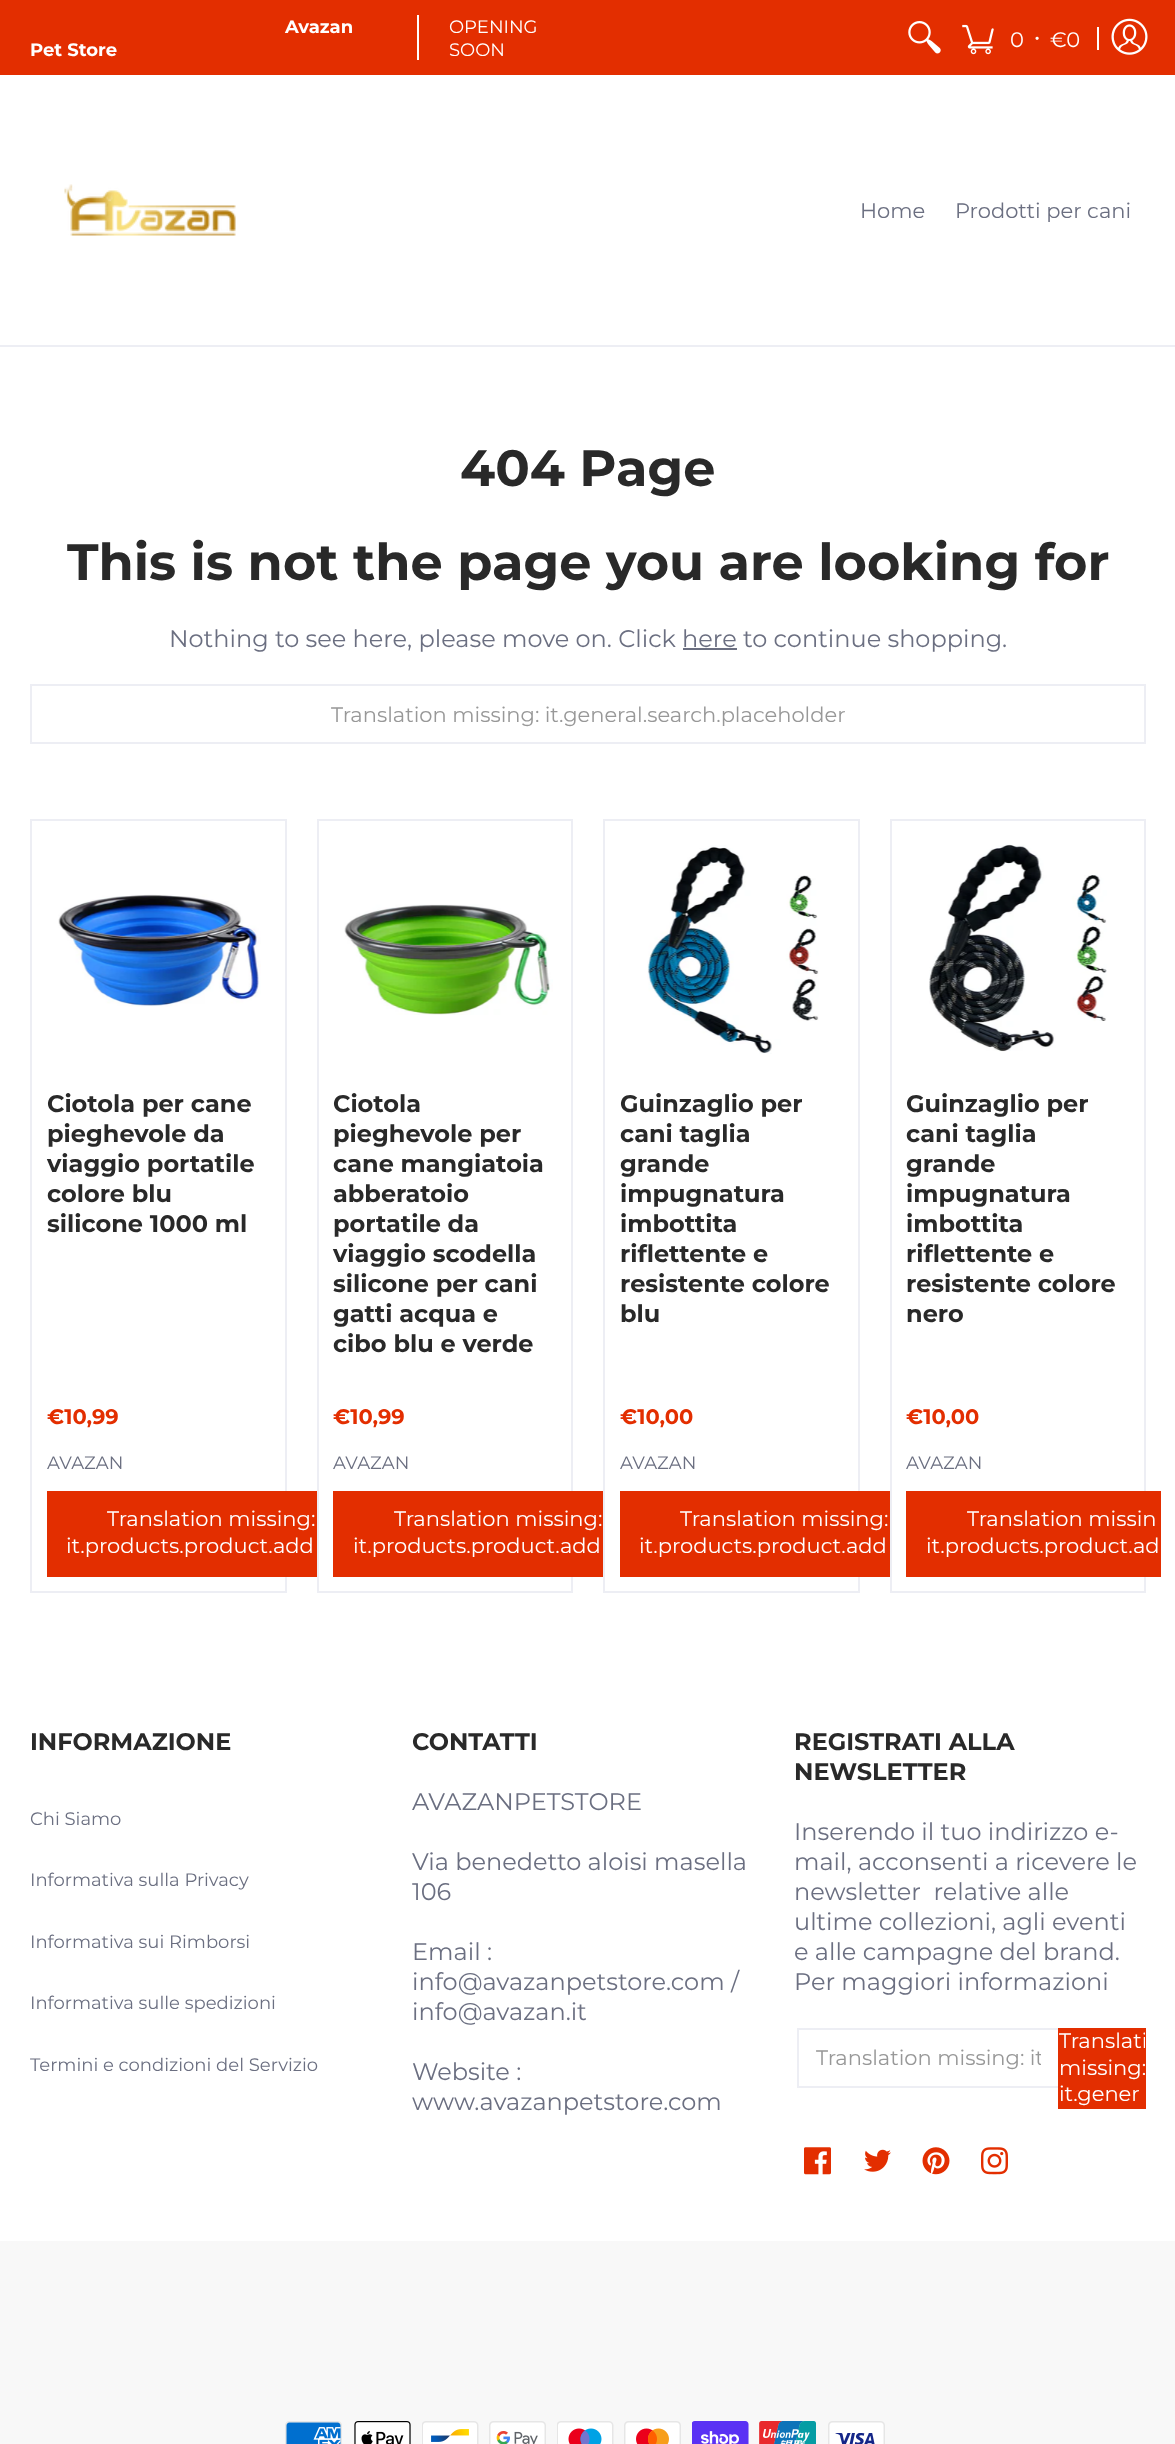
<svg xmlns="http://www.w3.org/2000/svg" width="1175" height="2444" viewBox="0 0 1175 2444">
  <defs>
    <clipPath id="clip1"><rect x="816" y="2045" width="225" height="27"/></clipPath>
    <clipPath id="clip2"><rect x="1059" y="2030" width="86" height="78"/></clipPath>
  </defs>
  <rect width="100%" height="100%" fill="rgb(255,255,255)"/>
  <rect x="0" y="0" width="1175" height="75" fill="rgb(227,46,0)"/>
  <g font-family="Montserrat" font-size="18" font-weight="bold" fill="rgb(255,255,255)">
    <text x="285" y="33">Avazan</text>
    <text x="30" y="56">Pet Store</text>
  </g>
  <rect x="417" y="15" width="2" height="45" fill="rgb(255,255,255)"/>
  <g font-family="Montserrat" font-size="18" fill="rgb(255,255,255)">
    <text>
      <tspan x="449" y="33">OPENING</tspan>
      <tspan x="449" y="56">SOON</tspan>
    </text>
  </g>
  <image x="908" y="21" width="33" height="33" href="pic1.png"/>
  <image x="962" y="24" width="32" height="31" href="pic2.png"/>
  <g font-family="Montserrat" font-size="21" fill="rgb(255,255,255)">
    <text x="1010" y="47">0</text>
    <text x="1034" y="44">•</text>
    <text x="1050" y="47">€0</text>
  </g>
  <rect x="1097" y="27" width="2" height="23" fill="rgb(255,255,255)"/>
  <image x="1111" y="18" width="37" height="37" href="pic3.png"/>
  <rect x="0" y="345" width="1175" height="2" fill="rgb(237,238,244)"/>
  <image x="64" y="184" width="172" height="52" href="pic4.png"/>
  <g font-family="Montserrat" font-size="21" fill="rgb(107,111,129)">
    <text x="860" y="218">Home</text>
    <text x="955" y="218">Prodotti per cani</text>
  </g>
  <g font-family="Montserrat" font-size="51" font-weight="bold" fill="rgb(41,41,41)">
    <text x="460" y="486">404 Page</text>
    <text x="67" y="580">This is not the page you are looking for</text>
  </g>
  <text x="169" y="647" font-family="Montserrat" font-size="24" fill="rgb(107,111,129)">Nothing to see here, please move on. Click here to continue shopping.</text>
  <rect x="683" y="648" width="54" height="2" fill="rgb(107,111,129)"/>
  <rect x="31" y="685" width="1114" height="58" fill="none" stroke="rgb(237,238,244)" stroke-width="2"/>
  <text x="331" y="722" font-family="Montserrat" font-size="21" fill="rgb(152,152,152)">Translation missing: it.general.search.placeholder</text>
  <rect x="31" y="820" width="255" height="772" fill="none" stroke="rgb(237,238,244)" stroke-width="2"/>
  <image x="58" y="894" width="203" height="113" href="pic5.png"/>
  <g font-family="Montserrat" font-size="24" font-weight="bold" fill="rgb(41,41,41)">
    <text>
      <tspan x="47" y="1112">Ciotola per cane</tspan>
      <tspan x="47" y="1142">pieghevole da</tspan>
      <tspan x="47" y="1172">viaggio portatile</tspan>
      <tspan x="47" y="1202">colore blu</tspan>
      <tspan x="47" y="1232">silicone 1000 ml</tspan>
    </text>
  </g>
  <text x="47" y="1424" font-family="Montserrat" font-size="21" font-weight="bold" fill="rgb(227,46,0)">€10,99</text>
  <text x="47" y="1469" font-family="Montserrat" font-size="18" fill="rgb(107,111,129)">AVAZAN</text>
  <rect x="47" y="1491" width="270" height="86" fill="rgb(227,46,0)"/>
  <g font-family="Montserrat" font-size="21" fill="rgb(255,255,255)">
    <text x="107" y="1526">Translation missing:</text>
    <text x="66" y="1553">it.products.product.add</text>
  </g>
  <rect x="318" y="820" width="254" height="772" fill="none" stroke="rgb(237,238,244)" stroke-width="2"/>
  <image x="344" y="904" width="209" height="111" href="pic6.png"/>
  <g font-family="Montserrat" font-size="24" font-weight="bold" fill="rgb(41,41,41)">
    <text>
      <tspan x="333" y="1112">Ciotola</tspan>
      <tspan x="333" y="1142">pieghevole per</tspan>
      <tspan x="333" y="1172">cane mangiatoia</tspan>
      <tspan x="333" y="1202">abberatoio</tspan>
      <tspan x="333" y="1232">portatile da</tspan>
      <tspan x="333" y="1262">viaggio scodella</tspan>
      <tspan x="333" y="1292">silicone per cani</tspan>
      <tspan x="333" y="1322">gatti acqua e</tspan>
      <tspan x="333" y="1352">cibo blu e verde</tspan>
    </text>
  </g>
  <text x="333" y="1424" font-family="Montserrat" font-size="21" font-weight="bold" fill="rgb(227,46,0)">€10,99</text>
  <text x="333" y="1469" font-family="Montserrat" font-size="18" fill="rgb(107,111,129)">AVAZAN</text>
  <rect x="333" y="1491" width="270" height="86" fill="rgb(227,46,0)"/>
  <g font-family="Montserrat" font-size="21" fill="rgb(255,255,255)">
    <text x="394" y="1526">Translation missing:</text>
    <text x="353" y="1553">it.products.product.add</text>
  </g>
  <rect x="604" y="820" width="255" height="772" fill="none" stroke="rgb(237,238,244)" stroke-width="2"/>
  <image x="647" y="845" width="172" height="209" href="pic7.png"/>
  <g font-family="Montserrat" font-size="24" font-weight="bold" fill="rgb(41,41,41)">
    <text>
      <tspan x="620" y="1112">Guinzaglio per</tspan>
      <tspan x="620" y="1142">cani taglia</tspan>
      <tspan x="620" y="1172">grande</tspan>
      <tspan x="620" y="1202">impugnatura</tspan>
      <tspan x="620" y="1232">imbottita</tspan>
      <tspan x="620" y="1262">riflettente e</tspan>
      <tspan x="620" y="1292">resistente colore</tspan>
      <tspan x="620" y="1322">blu</tspan>
    </text>
  </g>
  <text x="620" y="1424" font-family="Montserrat" font-size="21" font-weight="bold" fill="rgb(227,46,0)">€10,00</text>
  <text x="620" y="1469" font-family="Montserrat" font-size="18" fill="rgb(107,111,129)">AVAZAN</text>
  <rect x="620" y="1491" width="270" height="86" fill="rgb(227,46,0)"/>
  <g font-family="Montserrat" font-size="21" fill="rgb(255,255,255)">
    <text x="680" y="1526">Translation missing:</text>
    <text x="639" y="1553">it.products.product.add</text>
  </g>
  <rect x="891" y="820" width="254" height="772" fill="none" stroke="rgb(237,238,244)" stroke-width="2"/>
  <image x="929" y="844" width="178" height="208" href="pic8.png"/>
  <g font-family="Montserrat" font-size="24" font-weight="bold" fill="rgb(41,41,41)">
    <text>
      <tspan x="906" y="1112">Guinzaglio per</tspan>
      <tspan x="906" y="1142">cani taglia</tspan>
      <tspan x="906" y="1172">grande</tspan>
      <tspan x="906" y="1202">impugnatura</tspan>
      <tspan x="906" y="1232">imbottita</tspan>
      <tspan x="906" y="1262">riflettente e</tspan>
      <tspan x="906" y="1292">resistente colore</tspan>
      <tspan x="906" y="1322">nero</tspan>
    </text>
  </g>
  <text x="906" y="1424" font-family="Montserrat" font-size="21" font-weight="bold" fill="rgb(227,46,0)">€10,00</text>
  <text x="906" y="1469" font-family="Montserrat" font-size="18" fill="rgb(107,111,129)">AVAZAN</text>
  <rect x="906" y="1491" width="255" height="86" fill="rgb(227,46,0)"/>
  <g font-family="Montserrat" font-size="21" fill="rgb(255,255,255)">
    <text x="967" y="1526">Translation missin</text>
    <text x="926" y="1553">it.products.product.ad</text>
  </g>
  <text x="30" y="1750" font-family="Montserrat" font-size="24" font-weight="bold" fill="rgb(41,41,41)">INFORMAZIONE</text>
  <g font-family="Montserrat" font-size="18" fill="rgb(107,111,129)">
    <text x="30" y="1825">Chi Siamo</text>
    <text x="30" y="1886">Informativa sulla Privacy</text>
    <text x="30" y="1948">Informativa sui Rimborsi</text>
    <text x="30" y="2009">Informativa sulle spedizioni</text>
    <text x="30" y="2071">Termini e condizioni del Servizio</text>
  </g>
  <text x="412" y="1750" font-family="Montserrat" font-size="24" font-weight="bold" fill="rgb(41,41,41)">CONTATTI</text>
  <g font-family="Montserrat" font-size="24" fill="rgb(107,111,129)">
    <text x="412" y="1810">AVAZANPETSTORE</text>
    <text>
      <tspan x="412" y="1870">Via benedetto aloisi masella</tspan>
      <tspan x="412" y="1900">106</tspan>
    </text>
    <text>
      <tspan x="412" y="1960">Email :</tspan>
      <tspan x="412" y="1990">info@avazanpetstore.com /</tspan>
      <tspan x="412" y="2020">info@avazan.it</tspan>
    </text>
    <text>
      <tspan x="412" y="2080">Website :</tspan>
      <tspan x="412" y="2110">www.avazanpetstore.com</tspan>
    </text>
  </g>
  <g font-family="Montserrat" font-size="24" font-weight="bold" fill="rgb(41,41,41)">
    <text>
      <tspan x="794" y="1750">REGISTRATI ALLA</tspan>
      <tspan x="794" y="1780">NEWSLETTER</tspan>
    </text>
  </g>
  <g font-family="Montserrat" font-size="24" fill="rgb(107,111,129)">
    <text xml:space="preserve"><tspan x="794" y="1840">Inserendo il tuo indirizzo e-</tspan><tspan x="794" y="1870">mail, acconsenti a ricevere le</tspan><tspan x="794" y="1900">newsletter  relative alle</tspan><tspan x="794" y="1930">ultime collezioni, agli eventi</tspan><tspan x="794" y="1960">e alle campagne del brand.</tspan><tspan x="794" y="1990">Per maggiori informazioni</tspan></text>
  </g>
  <rect x="798" y="2029" width="262" height="58" fill="none" stroke="rgb(237,238,244)" stroke-width="2"/>
  <g clip-path="url(#clip1)">
    <text x="816" y="2065" font-family="Montserrat" font-size="21" fill="rgb(152,152,152)">Translation missing: it</text>
  </g>
  <rect x="1058" y="2028" width="88" height="81" fill="rgb(227,46,0)"/>
  <g clip-path="url(#clip2)">
    <g font-family="Montserrat" font-size="21" fill="rgb(255,255,255)">
      <text>
        <tspan x="1059" y="2048">Translati</tspan>
        <tspan x="1059" y="2075">missing:</tspan>
      </text>
    </g>
  </g>
  <text x="1059" y="2101" font-family="Montserrat" font-size="21" fill="rgb(255,255,255)">it.gener</text>
  <image x="804" y="2147" width="27" height="28" href="pic9.png"/>
  <image x="864" y="2149" width="27" height="23" href="pic10.png"/>
  <image x="922" y="2147" width="28" height="28" href="pic11.png"/>
  <image x="981" y="2147" width="27" height="28" href="pic12.png"/>
  <rect x="0" y="2241" width="1175" height="203" fill="rgb(248,248,248)"/>
  <image x="285" y="2421" width="57" height="23" href="pic13.png"/>
  <image x="354" y="2421" width="57" height="23" href="pic14.png"/>
  <image x="422" y="2421" width="57" height="23" href="pic15.png"/>
  <image x="489" y="2421" width="57" height="23" href="pic16.png"/>
  <image x="557" y="2421" width="57" height="23" href="pic17.png"/>
  <image x="624" y="2421" width="57" height="23" href="pic18.png"/>
  <image x="692" y="2421" width="57" height="23" href="pic19.png"/>
  <image x="759" y="2421" width="57" height="23" href="pic20.png"/>
  <image x="828" y="2421" width="57" height="23" href="pic21.png"/>
</svg>
